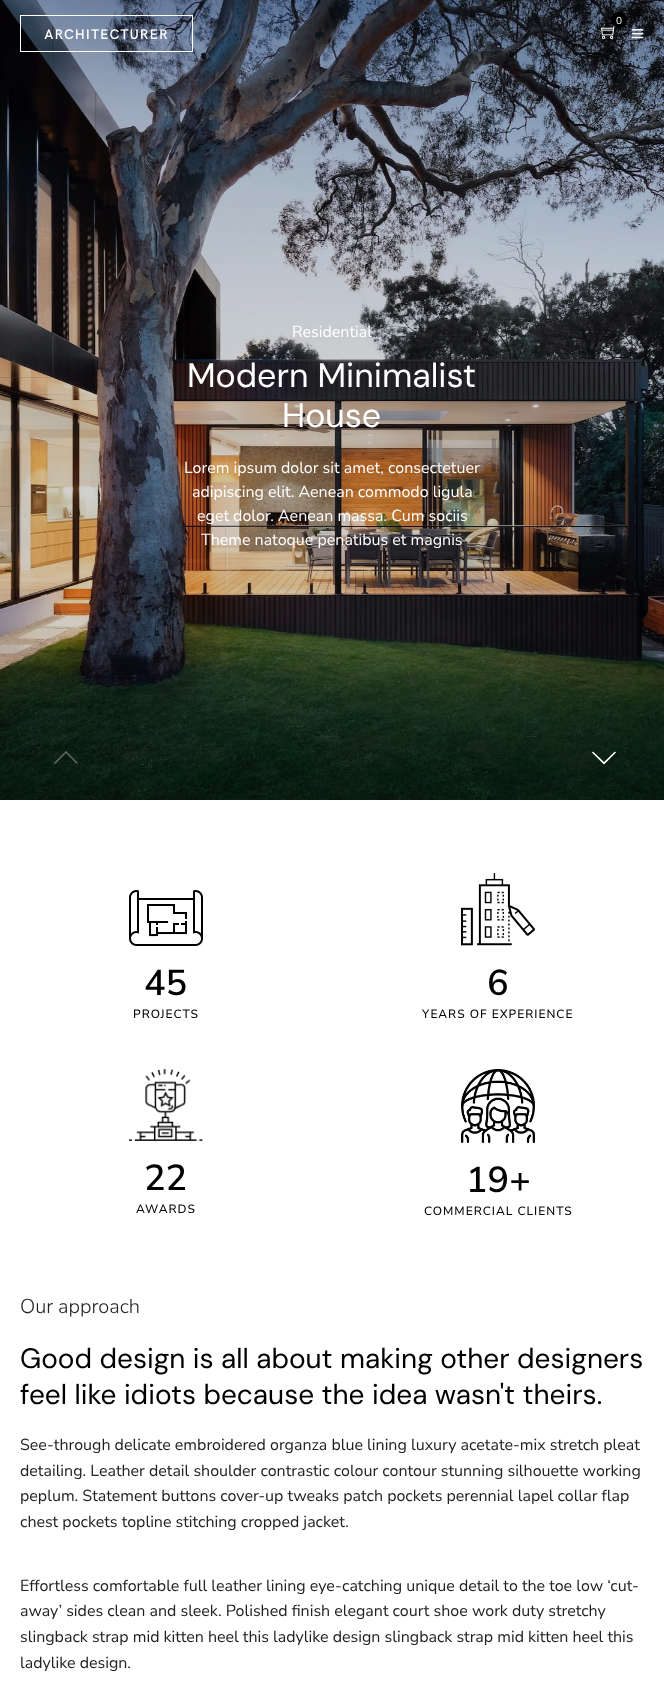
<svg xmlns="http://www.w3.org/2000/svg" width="664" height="1699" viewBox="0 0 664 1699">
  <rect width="100%" height="100%" fill="rgb(255,255,255)"/>
  <image x="0" y="0" width="664" height="800" href="pic4.png"/>
  <image x="20" y="15" width="173" height="37" href="pic1.png"/>
  <image x="601" y="25" width="15" height="14" href="pic2.png"/>
  <circle cx="619" cy="20" r="8" fill="rgb(0,0,0)"/>
  <text x="616" y="24" font-family="Nunito Sans" font-size="10" font-weight="200" fill="rgb(255,255,255)">0</text>
  <image x="631" y="29" width="13" height="10" href="pic3.png"/>
  <text x="292" y="337" font-family="Nunito Sans" font-size="16" font-weight="200" fill="rgb(255,255,255)">Residential</text>
  <g font-family="DM Sans" font-size="34" fill="rgb(255,255,255)">
    <text x="187" y="387">Modern Minimalist</text>
    <text x="282" y="427">House</text>
  </g>
  <g font-family="Nunito Sans" font-size="16" font-weight="200" fill="rgb(255,255,255)">
    <text x="184" y="473">Lorem ipsum dolor sit amet, consectetuer</text>
    <text x="192" y="497">adipiscing elit. Aenean commodo ligula</text>
    <text x="197" y="521">eget dolor. Aenean massa. Cum sociis</text>
    <text x="201" y="545">Theme natoque penatibus et magnis</text>
  </g>
  <path d="M78 763L77 764L66 753L55 764L54 763L66 751Z" fill="rgba(255,255,255,0.35)"/>
  <path d="M616 752.5L604 764.5L592 752.5L593 751.5L604 762L615 751.5Z" fill="rgb(255,255,255)"/>
  <image x="129" y="890" width="74" height="56" href="pic5.png"/>
  <text x="144" y="995" font-family="Nunito Sans" font-size="36" font-weight="600" fill="rgb(0,0,0)">45</text>
  <text x="133" y="1018" font-family="Nunito Sans" font-size="12" font-weight="500" letter-spacing="1" fill="rgb(0,0,0)">PROJECTS</text>
  <image x="461" y="873" width="74" height="73" href="pic6.png"/>
  <text x="487" y="995" font-family="Nunito Sans" font-size="36" font-weight="600" fill="rgb(0,0,0)">6</text>
  <text x="422" y="1018" font-family="Nunito Sans" font-size="12" font-weight="500" letter-spacing="1" fill="rgb(0,0,0)">YEARS OF EXPERIENCE</text>
  <image x="129" y="1069" width="74" height="72" href="pic7.png"/>
  <text x="144" y="1190" font-family="Nunito Sans" font-size="36" font-weight="600" fill="rgb(0,0,0)">22</text>
  <text x="136" y="1213" font-family="Nunito Sans" font-size="12" font-weight="500" letter-spacing="1" fill="rgb(0,0,0)">AWARDS</text>
  <image x="461" y="1069" width="74" height="74" href="pic8.png"/>
  <text x="466" y="1192" font-family="Nunito Sans" font-size="36" font-weight="600" fill="rgb(0,0,0)">19+</text>
  <text x="424" y="1215" font-family="Nunito Sans" font-size="12" font-weight="500" letter-spacing="1" fill="rgb(0,0,0)">COMMERCIAL CLIENTS</text>
  <text x="20" y="1313" font-family="Nunito Sans" font-size="20" font-weight="300" fill="rgb(34,34,34)">Our approach</text>
  <g font-family="DM Sans" font-size="28" fill="rgb(0,0,0)">
    <text>
      <tspan x="20" y="1368">Good design is all about making other designers</tspan>
      <tspan x="20" y="1404">feel like idiots because the idea wasn't theirs.</tspan>
    </text>
  </g>
  <g font-family="Nunito Sans" font-size="16" font-weight="200" fill="rgb(34,34,34)">
    <text>
      <tspan x="20" y="1450">See-through delicate embroidered organza blue lining luxury acetate-mix stretch pleat</tspan>
      <tspan x="20" y="1476">detailing. Leather detail shoulder contrastic colour contour stunning silhouette working</tspan>
      <tspan x="20" y="1501">peplum. Statement buttons cover-up tweaks patch pockets perennial lapel collar flap</tspan>
      <tspan x="20" y="1527">chest pockets topline stitching cropped jacket.</tspan>
    </text>
    <text>
      <tspan x="20" y="1591">Effortless comfortable full leather lining eye-catching unique detail to the toe low ‘cut-</tspan>
      <tspan x="20" y="1616">away’ sides clean and sleek. Polished finish elegant court shoe work duty stretchy</tspan>
      <tspan x="20" y="1642">slingback strap mid kitten heel this ladylike design slingback strap mid kitten heel this</tspan>
      <tspan x="20" y="1668">ladylike design.</tspan>
    </text>
  </g>
</svg>
